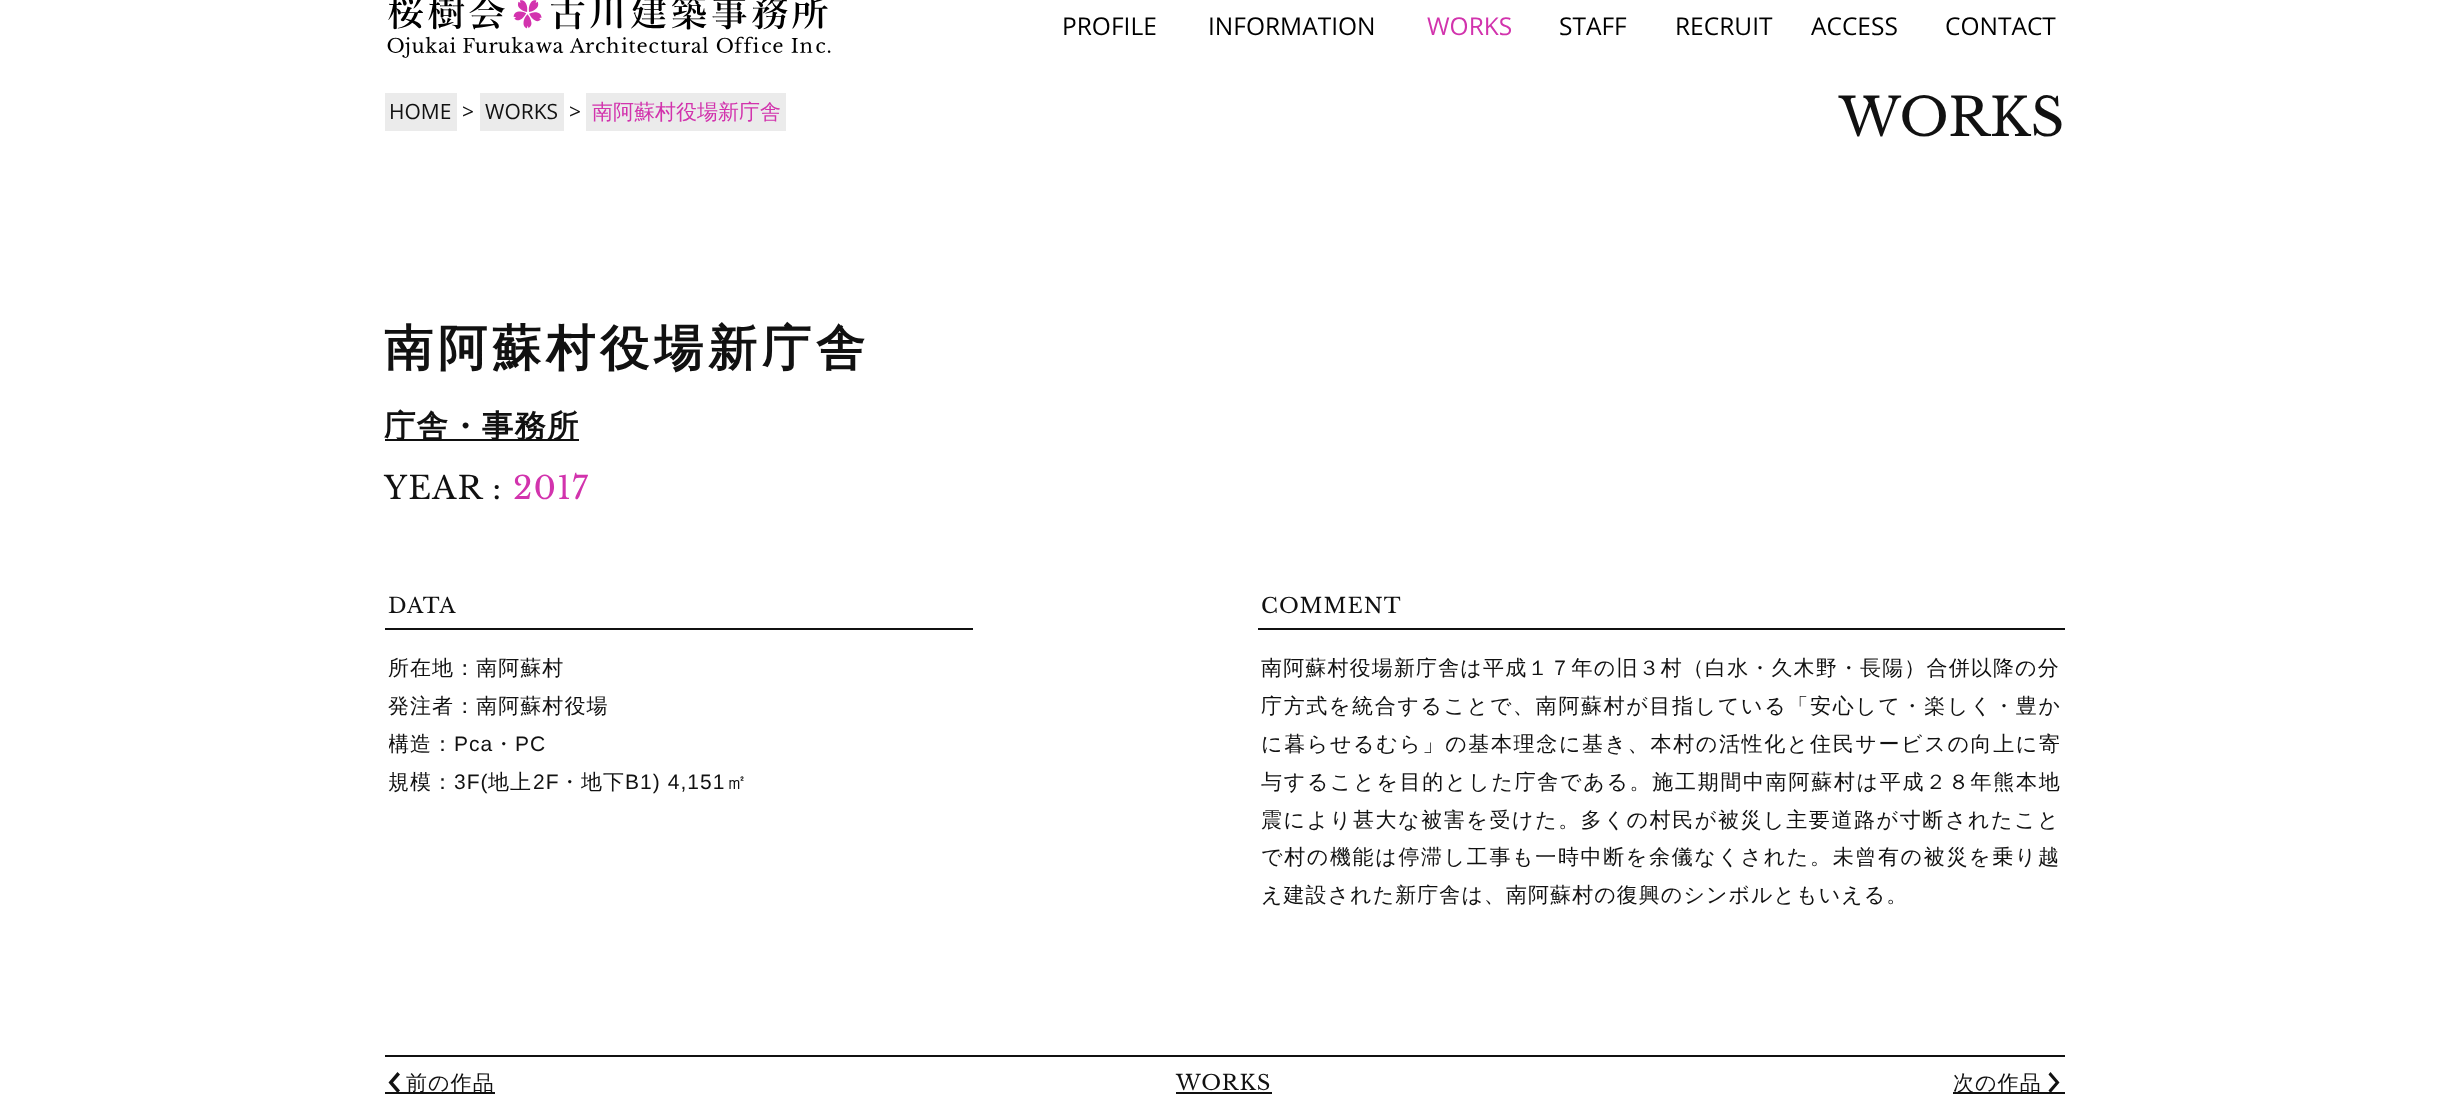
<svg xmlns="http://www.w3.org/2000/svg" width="2447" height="1098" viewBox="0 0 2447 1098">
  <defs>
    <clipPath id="clip1"><rect x="389" y="651" width="581" height="151"/></clipPath>
  </defs>
  <rect width="100%" height="100%" fill="rgb(255,255,255)"/>
  <image x="387" y="0" width="444" height="58" href="pic1.png"/>
  <g font-family="Open Sans" font-size="24.5" fill="rgb(0,0,0)">
    <text x="1062" y="35">PROFILE</text>
    <text x="1208" y="35">INFORMATION</text>
  </g>
  <text x="1427" y="35" font-family="Open Sans" font-size="24.5" fill="rgb(210,51,173)">WORKS</text>
  <g font-family="Open Sans" font-size="24.5" fill="rgb(0,0,0)">
    <text x="1559" y="35">STAFF</text>
    <text x="1675" y="35">RECRUIT</text>
    <text x="1811" y="35">ACCESS</text>
    <text x="1945" y="35">CONTACT</text>
  </g>
  <rect x="385" y="93" width="72" height="38" fill="rgb(235,235,235)"/>
  <g font-family="Open Sans" font-size="21" fill="rgb(17,17,17)">
    <text x="389" y="119">HOME</text>
    <text x="462" y="119">&gt;</text>
  </g>
  <rect x="480" y="93" width="84" height="38" fill="rgb(235,235,235)"/>
  <g font-family="Open Sans" font-size="21" fill="rgb(17,17,17)">
    <text x="485" y="119">WORKS</text>
    <text x="569" y="119">&gt;</text>
  </g>
  <rect x="586" y="93" width="200" height="38" fill="rgb(235,235,235)"/>
  <text x="592" y="119" font-family="WenQuanYi Zen Hei" font-size="21" font-weight="500" fill="rgb(210,51,173)">南阿蘇村役場新庁舎</text>
  <text x="1839" y="136" font-family="Libre Baskerville" font-size="52.5" fill="rgb(17,17,17)">WORKS</text>
  <text x="384" y="365" font-family="WenQuanYi Zen Hei" font-size="49" font-weight="bold" letter-spacing="5" fill="rgb(17,17,17)">南阿蘇村役場新庁舎</text>
  <rect x="385" y="439" width="194" height="2" fill="rgb(17,17,17)"/>
  <text x="384" y="437" font-family="WenQuanYi Zen Hei" font-size="31.5" font-weight="bold" letter-spacing="1.05" fill="rgb(17,17,17)">庁舎・事務所</text>
  <text x="384" y="499" font-family="Libre Baskerville" font-size="31.5" letter-spacing="1.05" fill="rgb(17,17,17)">YEAR :</text>
  <text x="513" y="499" font-family="Libre Baskerville" font-size="31.5" letter-spacing="1.05" fill="rgb(210,51,173)">2017</text>
  <rect x="385" y="628" width="588" height="2" fill="rgb(17,17,17)"/>
  <text x="388" y="613" font-family="Libre Baskerville" font-size="21" letter-spacing="1.05" fill="rgb(17,17,17)">DATA</text>
  <g font-family="WenQuanYi Zen Hei" font-size="21" font-weight="500" letter-spacing="1.05" fill="rgb(17,17,17)">
    <text>
      <tspan x="388" y="675">所在地：南阿蘇村</tspan>
      <tspan x="388" y="713">発注者：南阿蘇村役場</tspan>
    </text>
  </g>
  <g clip-path="url(#clip1)">
    <text x="388" y="751" font-family="WenQuanYi Zen Hei" font-size="21" font-weight="500" letter-spacing="1.05" fill="rgb(17,17,17)">構造</text>
  </g>
  <text x="432" y="751" font-family="WenQuanYi Zen Hei" font-size="21" font-weight="500" letter-spacing="1.05" fill="rgb(17,17,17)">：</text>
  <text x="454" y="751" font-family="Liberation Sans" font-size="21" letter-spacing="1.05" fill="rgb(17,17,17)">Pca</text>
  <text x="493" y="751" font-family="WenQuanYi Zen Hei" font-size="21" font-weight="500" letter-spacing="1.05" fill="rgb(17,17,17)">・</text>
  <text x="515" y="751" font-family="Liberation Sans" font-size="21" letter-spacing="1.05" fill="rgb(17,17,17)">PC</text>
  <text x="388" y="789" font-family="WenQuanYi Zen Hei" font-size="21" font-weight="500" letter-spacing="1.05" fill="rgb(17,17,17)">規模：</text>
  <text x="454" y="789" font-family="Liberation Sans" font-size="21" letter-spacing="1.05" fill="rgb(17,17,17)">3F(</text>
  <text x="488" y="789" font-family="WenQuanYi Zen Hei" font-size="21" font-weight="500" letter-spacing="1.05" fill="rgb(17,17,17)">地上</text>
  <text x="533" y="789" font-family="Liberation Sans" font-size="21" letter-spacing="1.05" fill="rgb(17,17,17)">2F</text>
  <text x="559" y="789" font-family="WenQuanYi Zen Hei" font-size="21" font-weight="500" letter-spacing="1.05" fill="rgb(17,17,17)">・地下</text>
  <text x="625" y="789" font-family="Liberation Sans" font-size="21" letter-spacing="1.05" fill="rgb(17,17,17)">B1) 4,151</text>
  <text x="726" y="789" font-family="WenQuanYi Zen Hei" font-size="21" font-weight="500" letter-spacing="1.05" fill="rgb(17,17,17)">㎡</text>
  <rect x="1258" y="628" width="807" height="2" fill="rgb(17,17,17)"/>
  <text x="1261" y="613" font-family="Libre Baskerville" font-size="21" letter-spacing="1.05" fill="rgb(17,17,17)">COMMENT</text>
  <text x="1261" y="675" font-family="WenQuanYi Zen Hei" font-size="21" font-weight="500" letter-spacing="1.15" fill="rgb(17,17,17)">南阿蘇村役場新庁舎は平成１７年の旧３村（白水・久木野・長陽）合併以降の分</text>
  <g font-family="WenQuanYi Zen Hei" font-size="21" font-weight="500" letter-spacing="1.65" fill="rgb(17,17,17)">
    <text>
      <tspan x="1261" y="713">庁方式を統合することで、南阿蘇村が目指している「安心して・楽しく・豊か</tspan>
      <tspan x="1261" y="751">に暮らせるむら」の基本理念に基き、本村の活性化と住民サービスの向上に寄</tspan>
    </text>
  </g>
  <text x="1261" y="789" font-family="WenQuanYi Zen Hei" font-size="21" font-weight="500" letter-spacing="1.7" fill="rgb(17,17,17)">与することを目的とした庁舎である。施工期間中南阿蘇村は平成２８年熊本地</text>
  <text x="1261" y="827" font-family="WenQuanYi Zen Hei" font-size="21" font-weight="500" letter-spacing="1.6" fill="rgb(17,17,17)">震により甚大な被害を受けた。多くの村民が被災し主要道路が寸断されたこと</text>
  <text x="1261" y="864" font-family="WenQuanYi Zen Hei" font-size="21" font-weight="500" letter-spacing="1.65" fill="rgb(17,17,17)">で村の機能は停滞し工事も一時中断を余儀なくされた。未曾有の被災を乗り越</text>
  <text x="1261" y="902" font-family="WenQuanYi Zen Hei" font-size="21" font-weight="500" letter-spacing="1.05" fill="rgb(17,17,17)">え建設された新庁舎は、南阿蘇村の復興のシンボルともいえる。</text>
  <rect x="385" y="1055" width="1680" height="2" fill="rgb(17,17,17)"/>
  <rect x="385" y="1092" width="110" height="2" fill="rgb(17,17,17)"/>
  <path d="M397.5 1093L400 1090.5L393 1082.5L400 1074.5L397.5 1072L388.5 1082.5Z" fill="rgb(17,17,17)"/>
  <text x="406" y="1090" font-family="WenQuanYi Zen Hei" font-size="21" font-weight="500" letter-spacing="1.05" fill="rgb(17,17,17)">前の作品</text>
  <text x="1176" y="1090" font-family="Libre Baskerville" font-size="21" letter-spacing="1.05" fill="rgb(17,17,17)">WORKS</text>
  <rect x="1176" y="1092" width="96" height="2" fill="rgb(17,17,17)"/>
  <rect x="1953" y="1092" width="112" height="2" fill="rgb(17,17,17)"/>
  <text x="1953" y="1090" font-family="WenQuanYi Zen Hei" font-size="21" font-weight="500" letter-spacing="1.05" fill="rgb(17,17,17)">次の作品</text>
  <path d="M2050.5 1072L2048.5 1074.5L2055.5 1082.5L2048.5 1090.5L2050.5 1093L2059.5 1082.5Z" fill="rgb(17,17,17)"/>
</svg>
